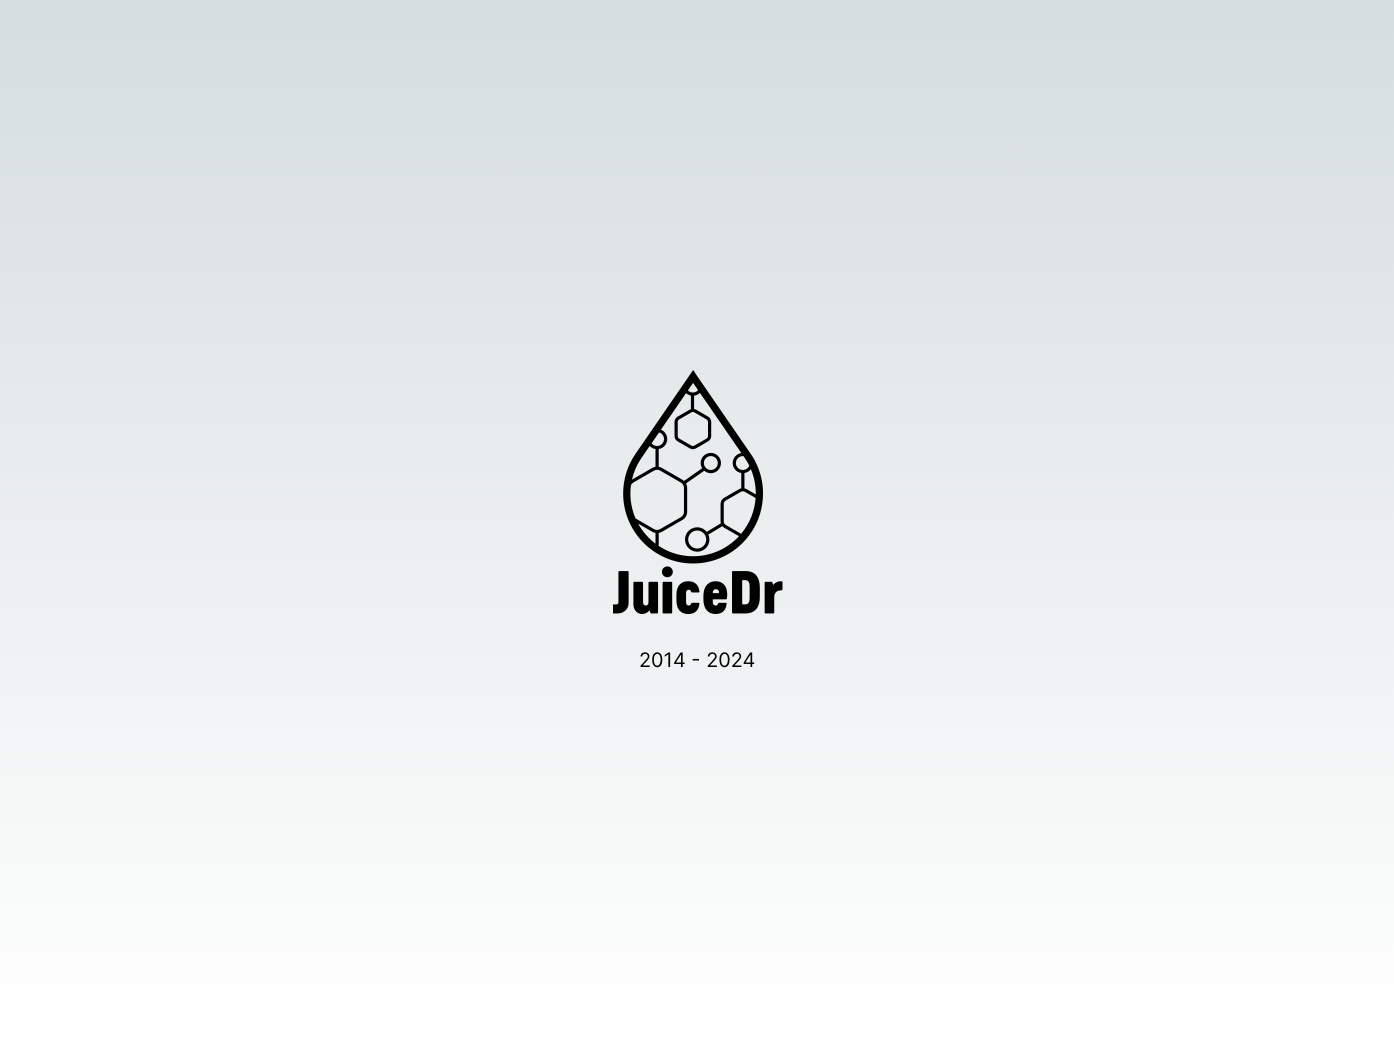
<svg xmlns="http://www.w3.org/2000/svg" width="1394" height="1045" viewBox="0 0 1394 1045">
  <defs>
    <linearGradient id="g1" gradientUnits="userSpaceOnUse" x1="698" y1="0" x2="698" y2="1045"><stop offset="0" stop-color="rgb(213,221,223)"/><stop offset="1" stop-color="rgb(255,255,255)"/></linearGradient>
  </defs>
  <rect width="100%" height="100%" fill="rgb(255,255,255)"/>
  <rect x="0" y="0" width="1394" height="983" fill="url(#g1)"/>
  <image x="613" y="370" width="170" height="244" href="pic1.png"/>
  <text x="639" y="667" font-family="Inter" font-size="20" fill="rgb(0,0,0)">2014 - 2024</text>
</svg>
